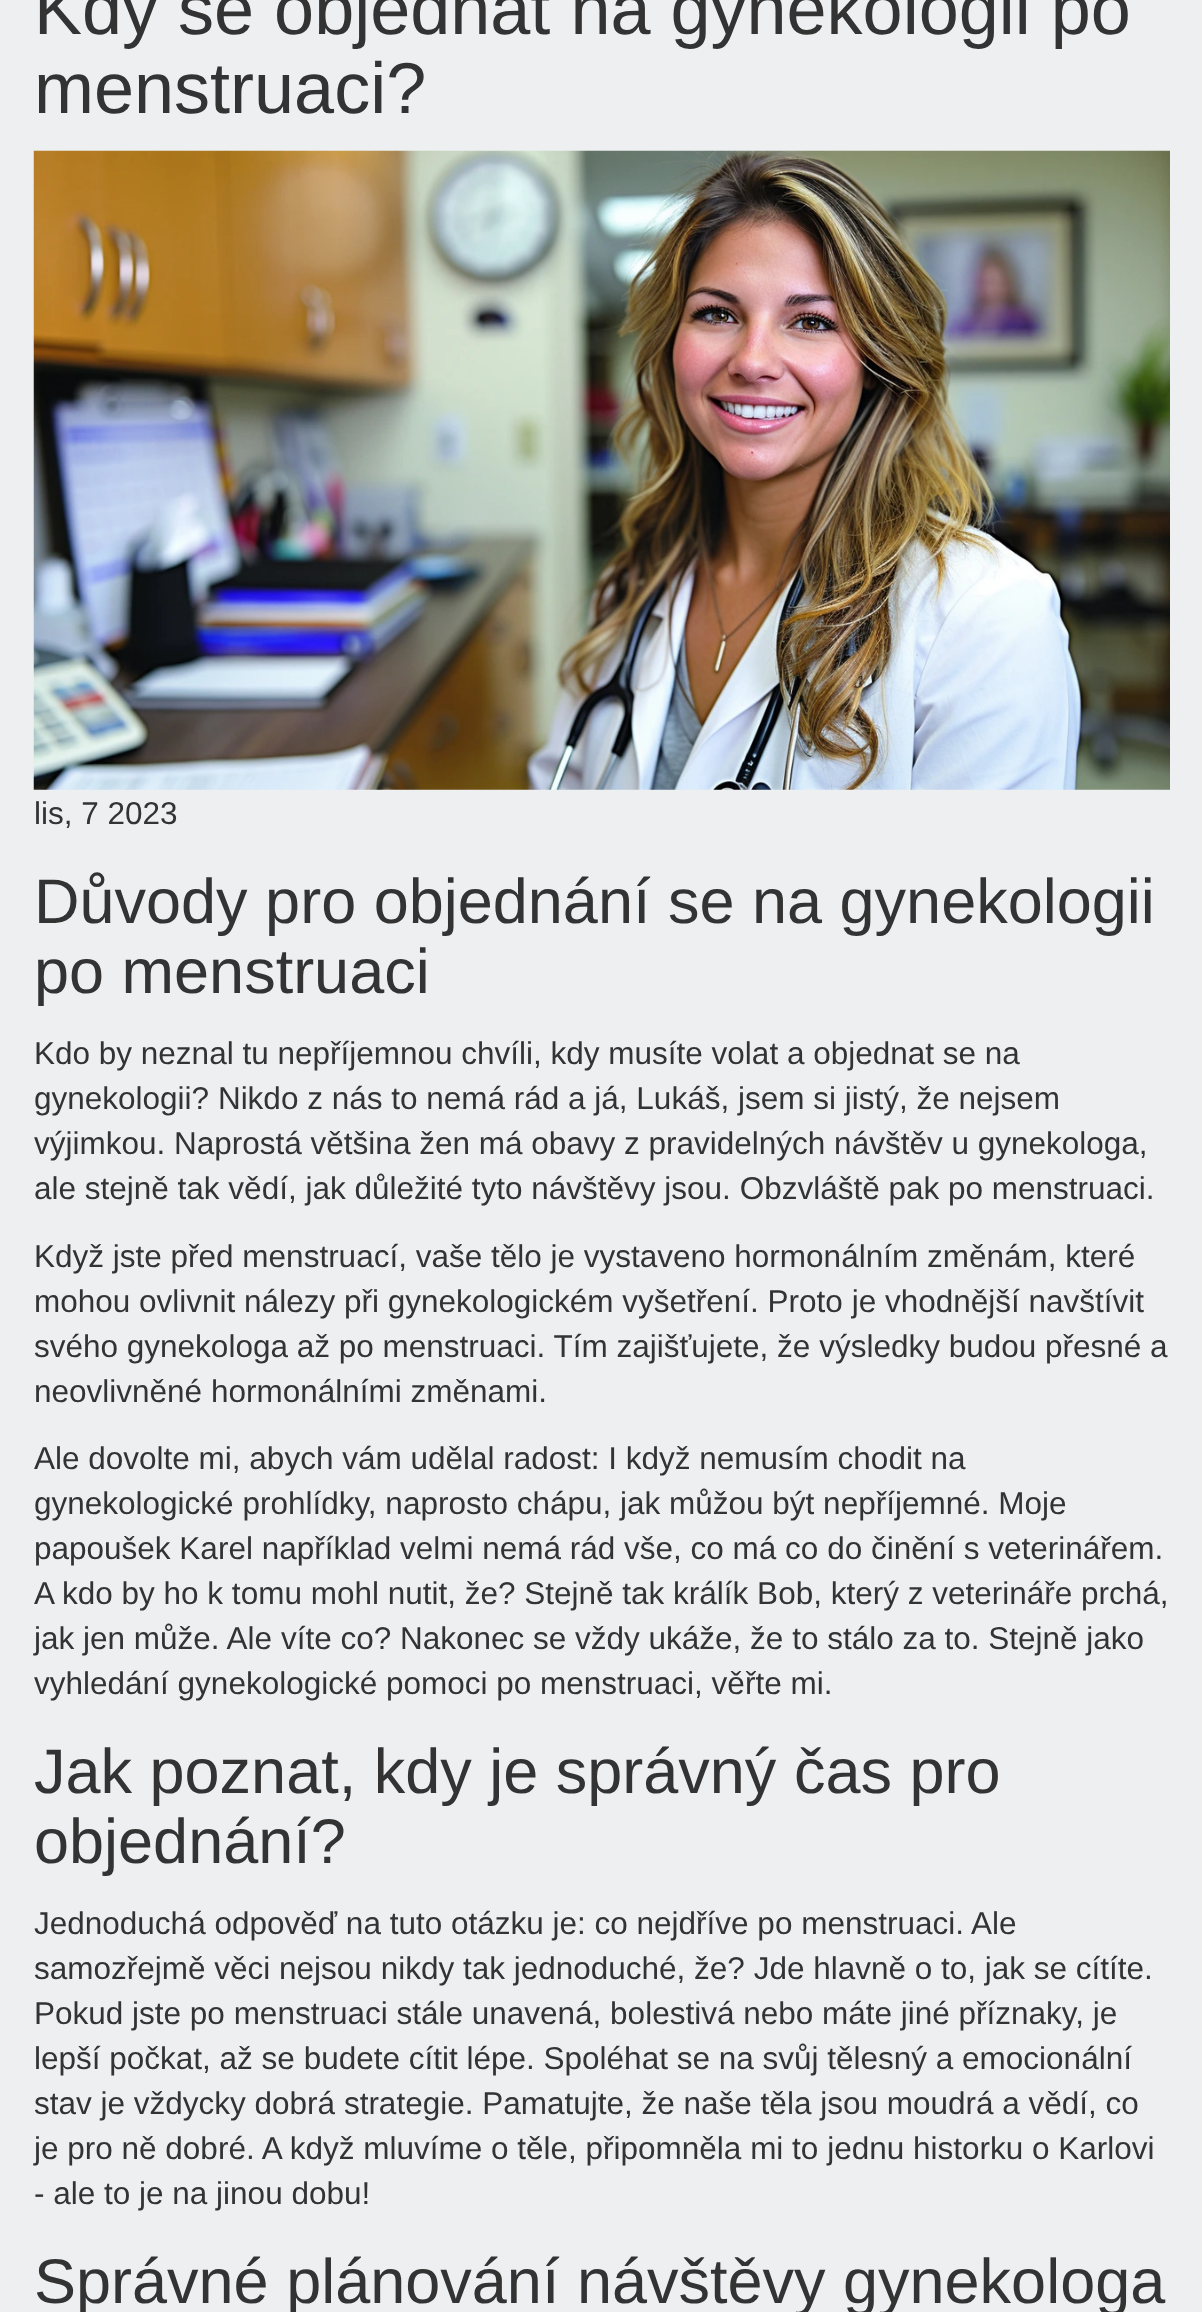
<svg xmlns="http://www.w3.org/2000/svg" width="1202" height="2312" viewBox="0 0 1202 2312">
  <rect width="100%" height="100%" fill="rgb(237,239,240)"/>
  <g font-family="Liberation Sans" font-size="72" fill="rgb(51,51,51)">
    <text>
      <tspan x="34" y="34">Kdy se objednat na gynekologii po</tspan>
      <tspan x="34" y="113">menstruaci?</tspan>
    </text>
  </g>
  <image x="33" y="150" width="1137" height="640" href="pic1.png"/>
  <text x="34" y="824" font-family="Liberation Sans" font-size="31.5" fill="rgb(51,51,51)">lis, 7 2023</text>
  <g font-family="Liberation Sans" font-size="63" fill="rgb(51,51,51)">
    <text>
      <tspan x="34" y="923">Důvody pro objednání se na gynekologii</tspan>
      <tspan x="34" y="993">po menstruaci</tspan>
    </text>
  </g>
  <g font-family="Liberation Sans" font-size="31.5" fill="rgb(51,51,51)">
    <text>
      <tspan x="34" y="1064">Kdo by neznal tu nepříjemnou chvíli, kdy musíte volat a objednat se na</tspan>
      <tspan x="34" y="1109">gynekologii? Nikdo z nás to nemá rád a já, Lukáš, jsem si jistý, že nejsem</tspan>
      <tspan x="34" y="1154">výjimkou. Naprostá většina žen má obavy z pravidelných návštěv u gynekologa,</tspan>
      <tspan x="34" y="1199">ale stejně tak vědí, jak důležité tyto návštěvy jsou. Obzvláště pak po menstruaci.</tspan>
    </text>
    <text>
      <tspan x="34" y="1267">Když jste před menstruací, vaše tělo je vystaveno hormonálním změnám, které</tspan>
      <tspan x="34" y="1312">mohou ovlivnit nálezy při gynekologickém vyšetření. Proto je vhodnější navštívit</tspan>
      <tspan x="34" y="1357">svého gynekologa až po menstruaci. Tím zajišťujete, že výsledky budou přesné a</tspan>
      <tspan x="34" y="1402">neovlivněné hormonálními změnami.</tspan>
    </text>
    <text>
      <tspan x="34" y="1469">Ale dovolte mi, abych vám udělal radost: I když nemusím chodit na</tspan>
      <tspan x="34" y="1514">gynekologické prohlídky, naprosto chápu, jak můžou být nepříjemné. Moje</tspan>
      <tspan x="34" y="1559">papoušek Karel například velmi nemá rád vše, co má co do činění s veterinářem.</tspan>
      <tspan x="34" y="1604">A kdo by ho k tomu mohl nutit, že? Stejně tak králík Bob, který z veterináře prchá,</tspan>
      <tspan x="34" y="1649">jak jen může. Ale víte co? Nakonec se vždy ukáže, že to stálo za to. Stejně jako</tspan>
      <tspan x="34" y="1694">vyhledání gynekologické pomoci po menstruaci, věřte mi.</tspan>
    </text>
  </g>
  <g font-family="Liberation Sans" font-size="63" fill="rgb(51,51,51)">
    <text>
      <tspan x="34" y="1793">Jak poznat, kdy je správný čas pro</tspan>
      <tspan x="34" y="1863">objednání?</tspan>
    </text>
  </g>
  <g font-family="Liberation Sans" font-size="31.5" fill="rgb(51,51,51)">
    <text>
      <tspan x="34" y="1934">Jednoduchá odpověď na tuto otázku je: co nejdříve po menstruaci. Ale</tspan>
      <tspan x="34" y="1979">samozřejmě věci nejsou nikdy tak jednoduché, že? Jde hlavně o to, jak se cítíte.</tspan>
      <tspan x="34" y="2024">Pokud jste po menstruaci stále unavená, bolestivá nebo máte jiné příznaky, je</tspan>
      <tspan x="34" y="2069">lepší počkat, až se budete cítit lépe. Spoléhat se na svůj tělesný a emocionální</tspan>
      <tspan x="34" y="2114">stav je vždycky dobrá strategie. Pamatujte, že naše těla jsou moudrá a vědí, co</tspan>
      <tspan x="34" y="2159">je pro ně dobré. A když mluvíme o těle, připomněla mi to jednu historku o Karlovi</tspan>
      <tspan x="34" y="2204">- ale to je na jinou dobu!</tspan>
    </text>
  </g>
  <text x="34" y="2303" font-family="Liberation Sans" font-size="63" fill="rgb(51,51,51)">Správné plánování návštěvy gynekologa</text>
</svg>
